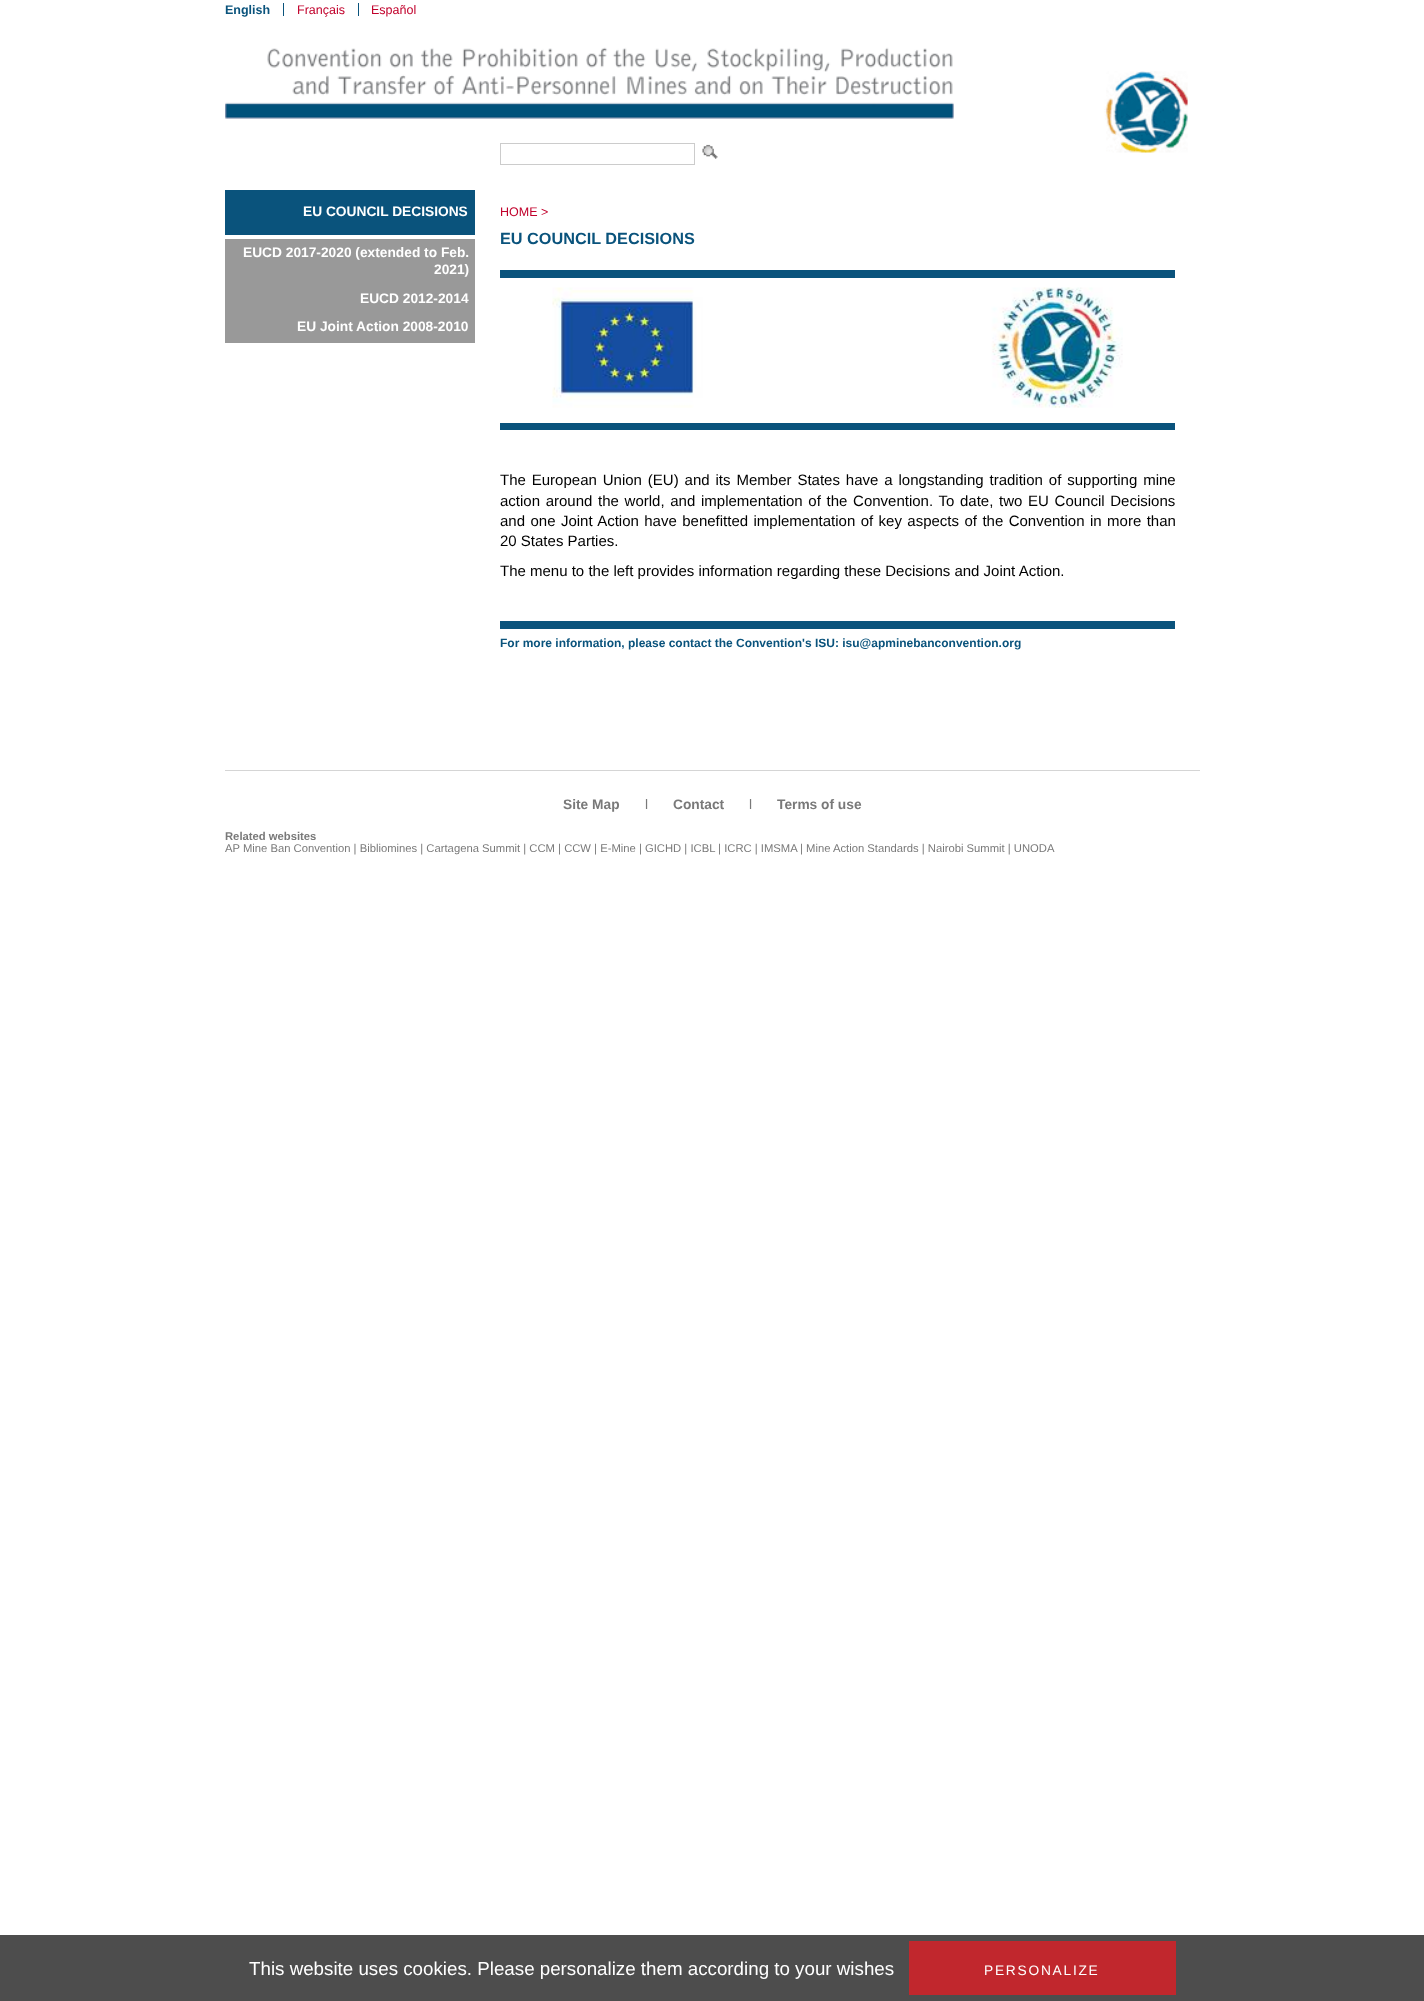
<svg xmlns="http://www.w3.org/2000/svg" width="1424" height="2001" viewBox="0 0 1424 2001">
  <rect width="100%" height="100%" fill="rgb(255,255,255)"/>
  <text x="225" y="14" font-family="Liberation Sans" font-size="12.5" font-weight="bold" fill="rgb(10,83,124)">English</text>
  <text x="297" y="14" font-family="Liberation Sans" font-size="12.5" fill="rgb(193,0,43)">Français</text>
  <rect x="283" y="3" width="1" height="13" fill="rgb(10,83,124)"/>
  <text x="371" y="14" font-family="Liberation Sans" font-size="12.5" fill="rgb(193,0,43)">Español</text>
  <rect x="358" y="3" width="1" height="13" fill="rgb(10,83,124)"/>
  <image x="225" y="47" width="729" height="72" href="pic1.png"/>
  <image x="1104" y="71" width="84" height="82" href="pic2.png"/>
  <rect x="500.5" y="143.5" width="194" height="21" fill="none" stroke="rgb(204,204,204)"/>
  <image x="702" y="144" width="16" height="15" href="pic3.png"/>
  <rect x="225" y="190" width="250" height="45" fill="rgb(10,83,124)"/>
  <text x="303" y="216" font-family="Liberation Sans" font-size="13.75" font-weight="bold" fill="rgb(255,255,255)">EU COUNCIL DECISIONS</text>
  <rect x="225" y="239" width="250" height="104" fill="rgb(153,153,153)"/>
  <g font-family="Liberation Sans" font-size="13.75" font-weight="bold" fill="rgb(255,255,255)">
    <text x="243" y="257">EUCD 2017-2020 (extended to Feb.</text>
    <text x="434" y="274">2021)</text>
    <text x="360" y="303">EUCD 2012-2014</text>
    <text x="297" y="331">EU Joint Action 2008-2010</text>
  </g>
  <text x="500" y="216" font-family="Liberation Sans" font-size="12.5" fill="rgb(193,0,43)">HOME &gt;</text>
  <text x="500" y="244" font-family="Liberation Sans" font-size="16.25" font-weight="bold" fill="rgb(10,83,124)">EU COUNCIL DECISIONS</text>
  <rect x="500" y="270" width="675" height="8" fill="rgb(10,83,124)"/>
  <image x="552" y="287" width="571" height="121" href="pic4.png"/>
  <rect x="500" y="423" width="675" height="7" fill="rgb(10,83,124)"/>
  <g font-family="Liberation Sans" font-size="15" fill="rgb(0,0,0)">
    <text>
      <tspan x="500" y="485" word-spacing="1.75">The European Union (EU) and its Member States have a longstanding tradition of supporting mine</tspan>
      <tspan x="500" y="506" word-spacing="1.5">action around the world, and implementation of the Convention. To date, two EU Council Decisions</tspan>
      <tspan x="500" y="526" word-spacing="1.25">and one Joint Action have benefitted implementation of key aspects of the Convention in more than</tspan>
      <tspan x="500" y="546">20 States Parties.</tspan>
    </text>
    <text x="500" y="576">The menu to the left provides information regarding these Decisions and Joint Action.</text>
  </g>
  <rect x="500" y="621" width="675" height="8" fill="rgb(10,83,124)"/>
  <text x="500" y="647" font-family="Liberation Sans" font-size="12" font-weight="bold" fill="rgb(10,83,124)">For more information, please contact the Convention's ISU: isu@apminebanconvention.org</text>
  <rect x="225" y="770" width="975" height="1" fill="rgb(213,213,213)"/>
  <text x="563" y="809" font-family="Liberation Sans" font-size="13.75" font-weight="bold" fill="rgb(121,121,121)">Site Map</text>
  <text x="645" y="809" font-family="Liberation Sans" font-size="13.75" fill="rgb(121,121,121)">l</text>
  <text x="673" y="809" font-family="Liberation Sans" font-size="13.75" font-weight="bold" fill="rgb(121,121,121)">Contact</text>
  <text x="749" y="809" font-family="Liberation Sans" font-size="13.75" fill="rgb(121,121,121)">l</text>
  <text x="777" y="809" font-family="Liberation Sans" font-size="13.75" font-weight="bold" fill="rgb(121,121,121)">Terms of use</text>
  <text x="225" y="840" font-family="Liberation Sans" font-size="11.25" font-weight="bold" fill="rgb(121,121,121)">Related websites</text>
  <g font-family="Liberation Sans" font-size="11.25" fill="rgb(121,121,121)">
    <text x="225" y="852">AP Mine Ban Convention | Bibliomines | Cartagena Summit | CCM | CCW | E-Mine | GICHD | ICBL | ICRC | IMSMA</text>
    <text x="800" y="852">| Mine Action Standards | Nairobi Summit | UNODA</text>
  </g>
  <rect x="0" y="1935" width="1424" height="66" fill="rgb(77,77,77)"/>
  <text x="249" y="1975" font-family="Liberation Sans" font-size="18.75" fill="rgb(255,255,255)">This website uses cookies. Please personalize them according to your wishes</text>
  <rect x="909" y="1941" width="267" height="54" fill="rgb(193,39,45)"/>
  <text x="984" y="1975" font-family="Liberation Sans" font-size="13.75" letter-spacing="1.75" fill="rgb(255,255,255)">PERSONALIZE</text>
</svg>
